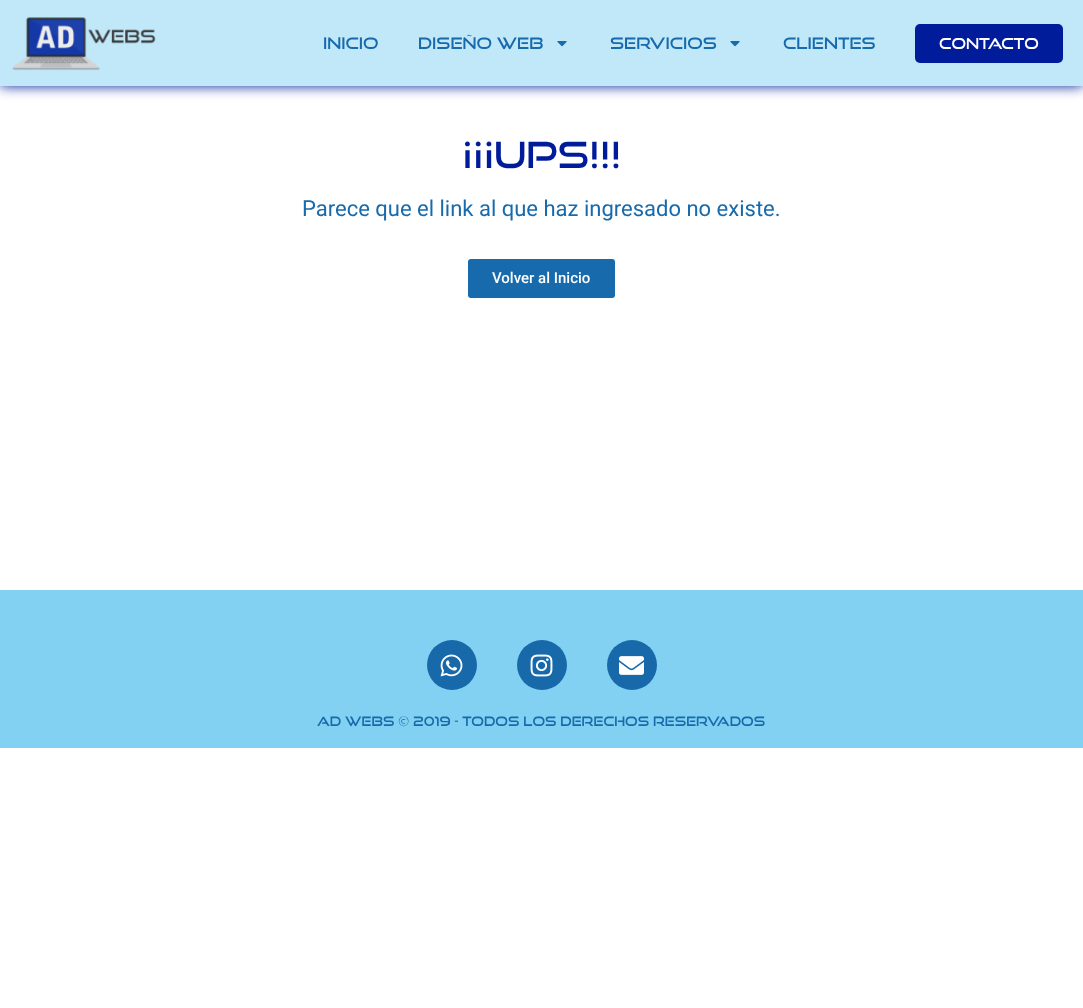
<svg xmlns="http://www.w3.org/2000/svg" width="1083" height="1008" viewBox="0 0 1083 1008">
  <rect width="100%" height="100%" fill="rgb(255,255,255)"/>
  <rect x="0" y="0" width="1083" height="86" fill="rgb(0,28,155)" filter="blur(6.5px)"/>
  <rect x="0" y="0" width="1083" height="86" fill="rgb(193,232,249)"/>
  <image x="12" y="17" width="144" height="54" href="pic1.png"/>
  <g font-family="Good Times" font-size="16" fill="rgb(23,106,171)">
    <text x="323" y="49">Inicio</text>
    <text x="418" y="49">Diseño Web</text>
  </g>
  <image x="557" y="41" width="10" height="6" href="pic2.png"/>
  <text x="610" y="49" font-family="Good Times" font-size="16" fill="rgb(23,106,171)">Servicios</text>
  <image x="730" y="41" width="10" height="6" href="pic2.png"/>
  <text x="783" y="49" font-family="Good Times" font-size="16" fill="rgb(23,106,171)">Clientes</text>
  <rect x="915" y="24" width="148" height="39" rx="5" fill="rgb(0,28,155)"/>
  <text x="939" y="49" font-family="Good Times" font-size="15" fill="rgb(255,255,255)">Contacto</text>
  <text x="462" y="168" font-family="Good Times" font-size="36" fill="rgb(0,28,155)">¡¡¡UPS!!!</text>
  <text x="302" y="216" font-family="Roboto" font-size="22" fill="rgb(23,106,171)">Parece que el link al que haz ingresado no existe.</text>
  <rect x="468" y="259" width="147" height="39" rx="3" fill="rgb(23,106,171)"/>
  <text x="492" y="283" font-family="Roboto" font-size="15" font-weight="500" fill="rgb(255,255,255)">Volver al Inicio</text>
  <rect x="0" y="590" width="1083" height="158" fill="rgb(130,209,242)"/>
  <circle cx="452" cy="665" r="25" fill="rgb(23,105,170)"/>
  <image x="440" y="654" width="23" height="23" href="pic3.png"/>
  <circle cx="542" cy="665" r="25" fill="rgb(23,105,170)"/>
  <image x="530" y="654" width="23" height="23" href="pic4.png"/>
  <circle cx="632" cy="665" r="25" fill="rgb(23,105,170)"/>
  <image x="619" y="656" width="25" height="19" href="pic5.png"/>
  <text x="317" y="726" font-family="Good Times" font-size="13" fill="rgb(23,106,171)">AD Webs © 2019 - Todos los derechos reservados</text>
</svg>
